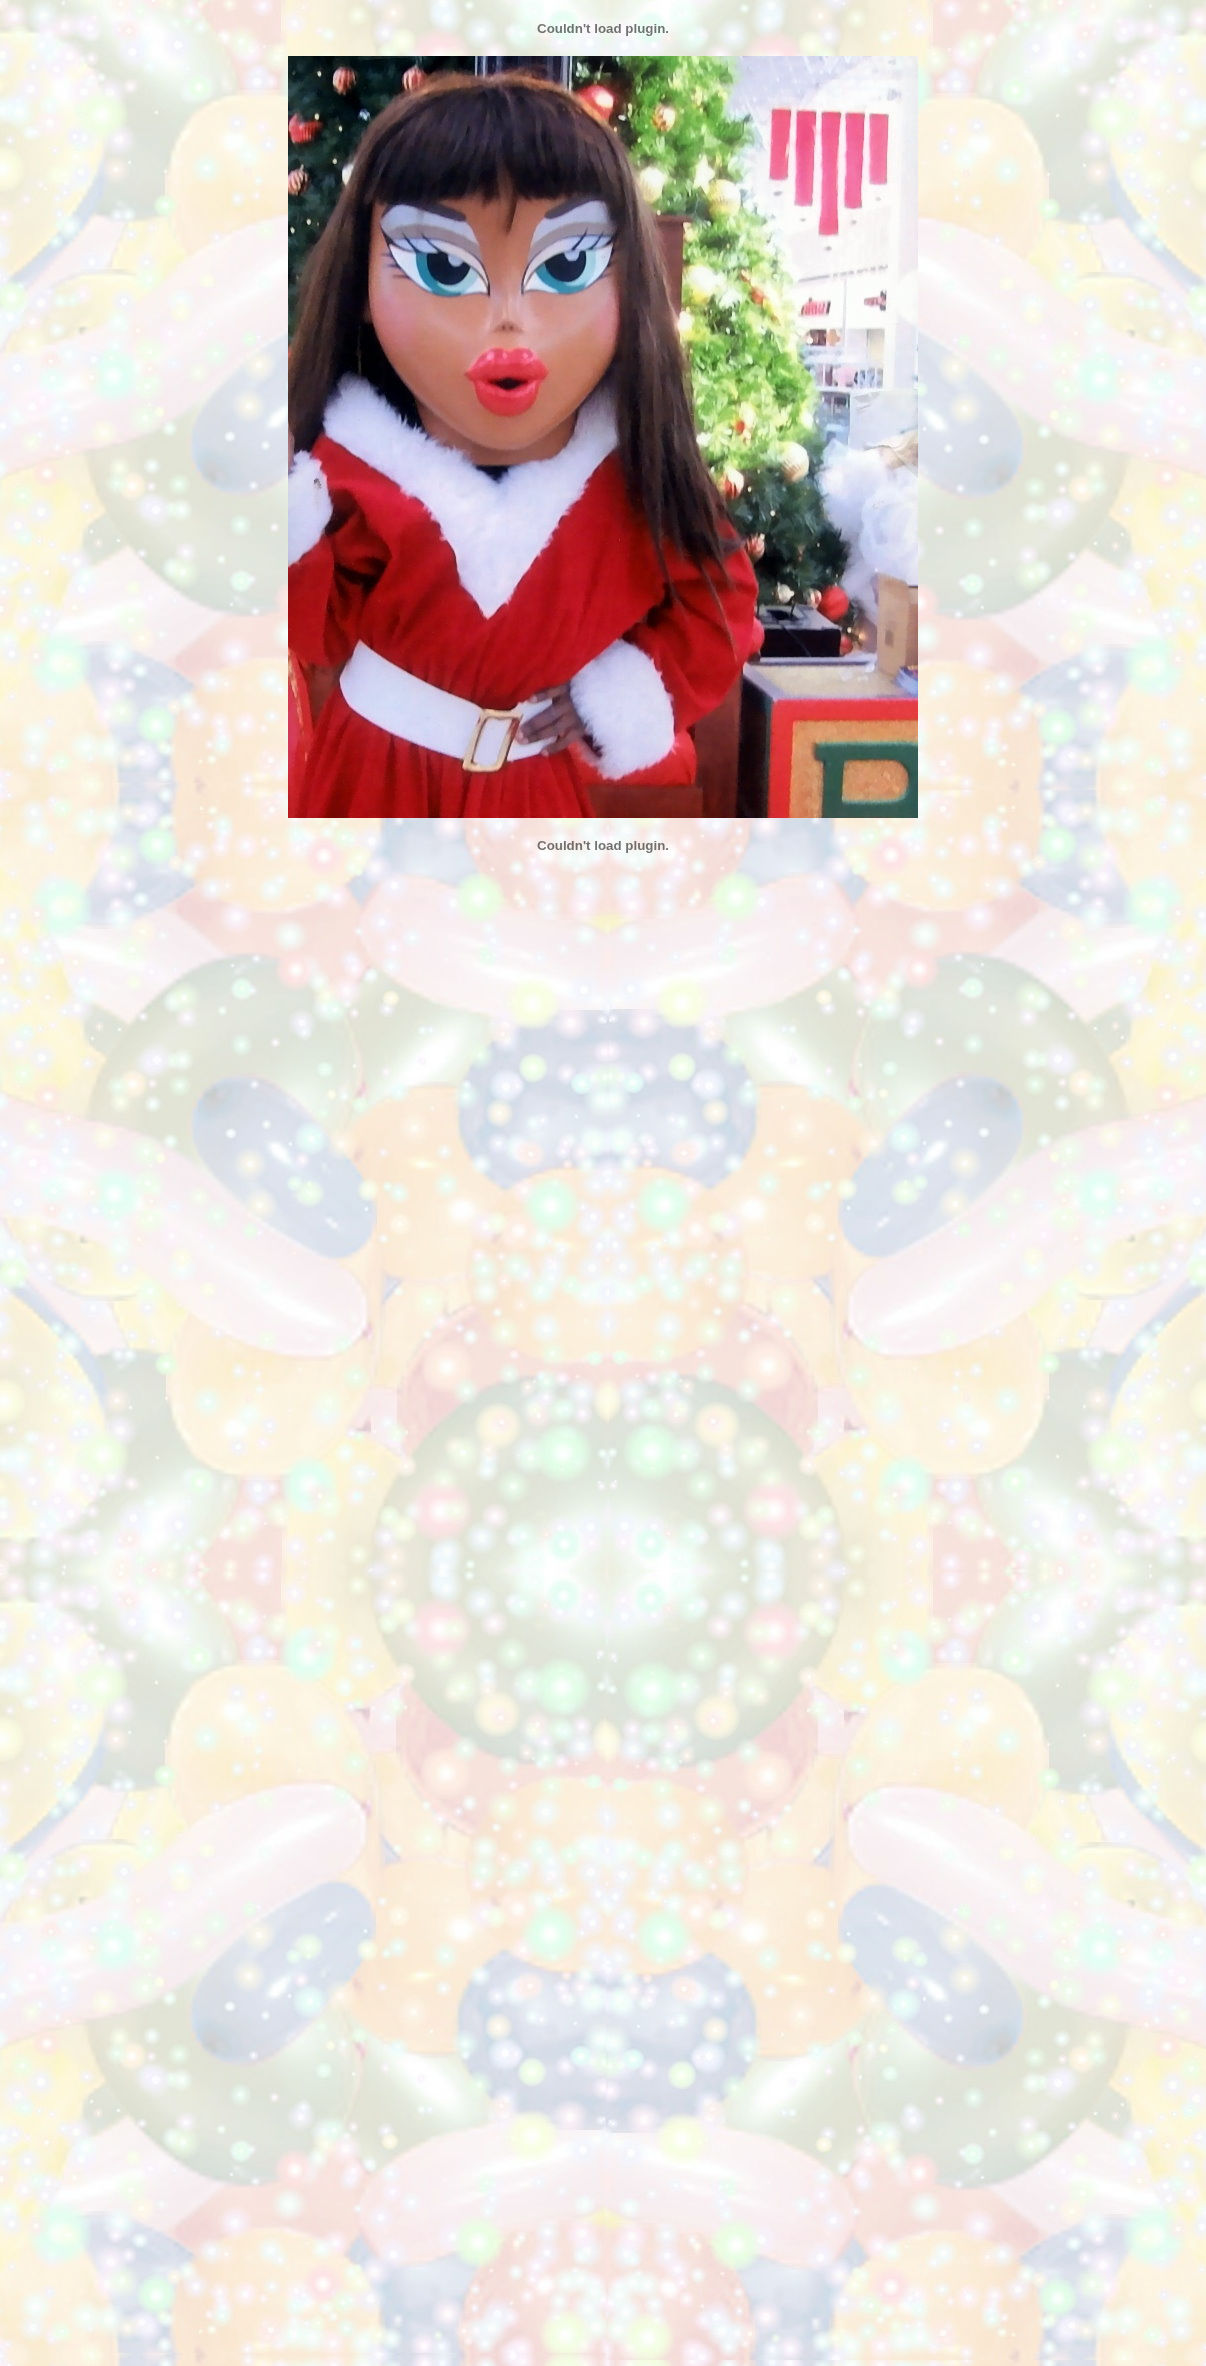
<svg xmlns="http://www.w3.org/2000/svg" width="1206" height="2366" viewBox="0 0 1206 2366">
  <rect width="100%" height="100%" fill="rgb(255,255,255)"/>
  <image x="0" y="0" width="1206" height="2366" href="pic1.png"/>
  <image x="531" y="19" width="139" height="18" href="pic2.png"/>
  <image x="288" y="56" width="630" height="762" href="pic3.png"/>
  <image x="532" y="836" width="143" height="18" href="pic4.png"/>
</svg>
